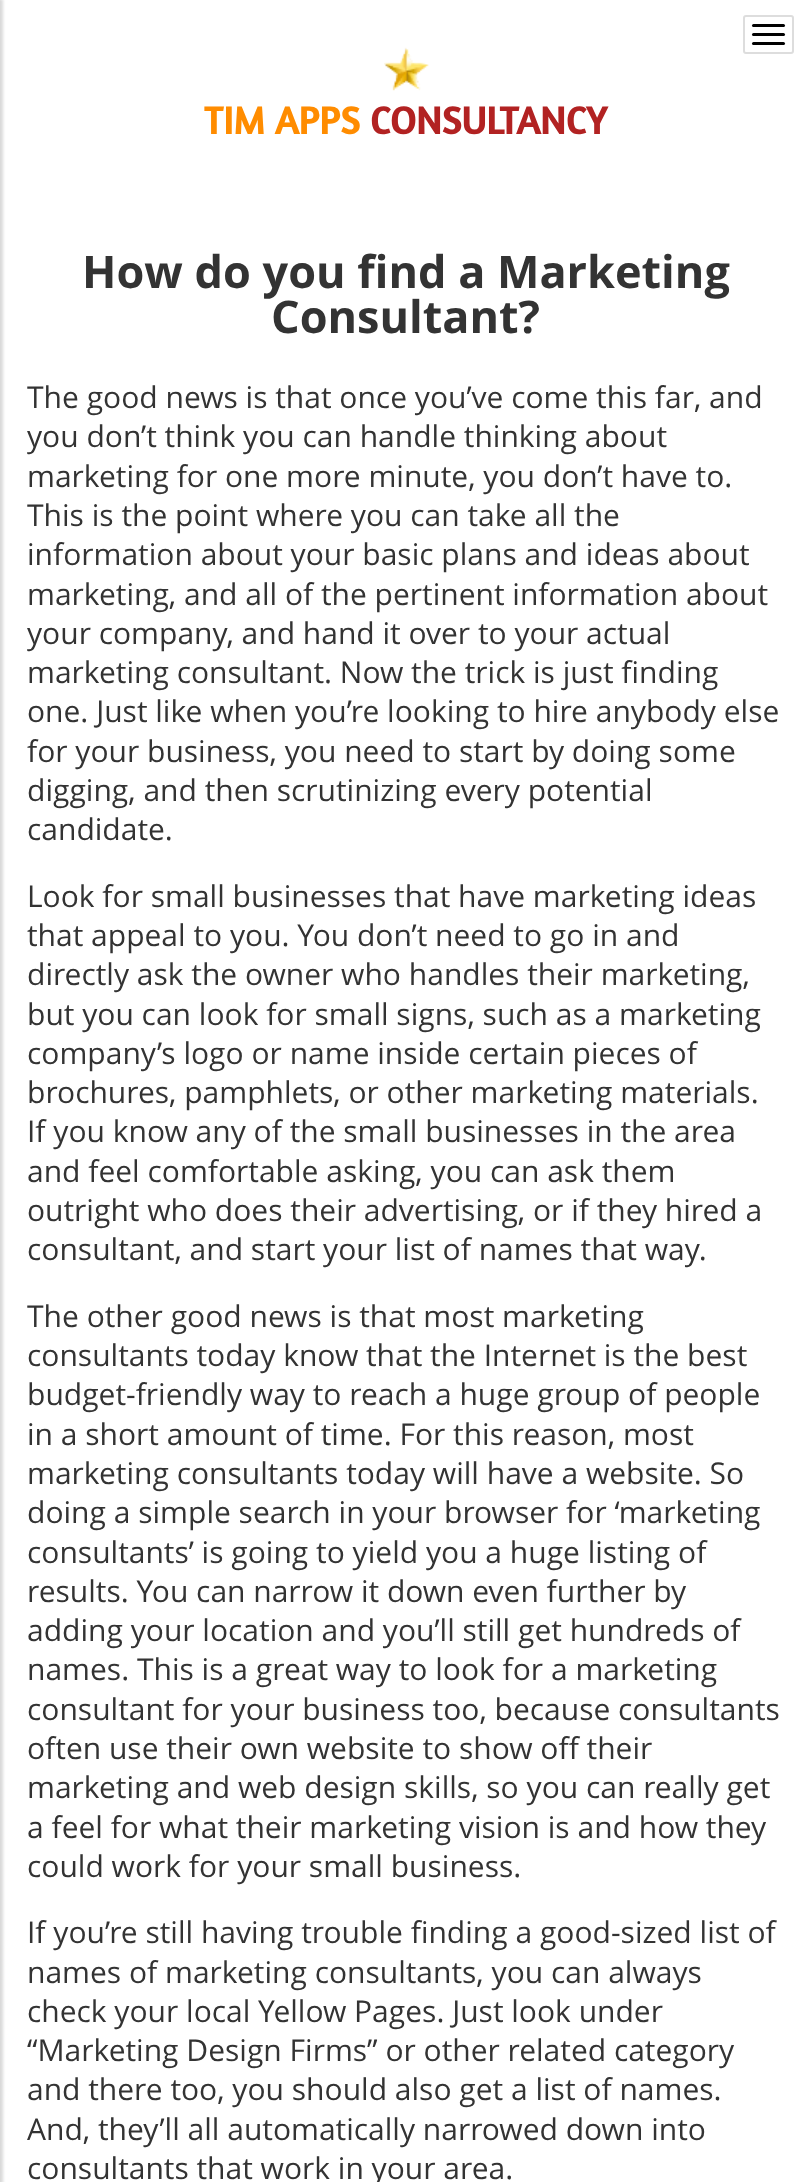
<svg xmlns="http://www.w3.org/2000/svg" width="811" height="2182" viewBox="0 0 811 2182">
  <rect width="100%" height="100%" fill="rgb(255,255,255)"/>
  <rect x="-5" y="-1" width="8" height="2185" fill="rgba(0,0,0,0.15)" filter="blur(1.5px)"/>
  <rect x="744" y="16" width="49" height="37" rx="2" fill="none" stroke="rgb(221,221,221)" stroke-width="2"/>
  <rect x="752" y="24" width="33" height="3" rx="1.5" fill="rgb(0,0,0)"/>
  <rect x="752" y="33" width="33" height="3" rx="1.5" fill="rgb(0,0,0)"/>
  <rect x="752" y="42" width="33" height="3" rx="1.5" fill="rgb(0,0,0)"/>
  <image x="384" y="47" width="45" height="44" href="pic1.png"/>
  <text x="204" y="134" font-family="Amaranth" font-size="39" font-weight="bold" fill="rgb(255,140,0)">TIM APPS</text>
  <text x="370" y="134" font-family="Amaranth" font-size="39" font-weight="bold" fill="rgb(178,34,34)">CONSULTANCY</text>
  <g font-family="Open Sans" font-size="45" font-weight="bold" fill="rgb(51,51,51)">
    <text x="82" y="288">How do you find a Marketing</text>
    <text x="271" y="333">Consultant?</text>
  </g>
  <g font-family="Open Sans" font-size="30" fill="rgb(51,51,51)">
    <text>
      <tspan x="27" y="408">The good news is that once you’ve come this far, and</tspan>
      <tspan x="27" y="447">you don’t think you can handle thinking about</tspan>
      <tspan x="27" y="487">marketing for one more minute, you don’t have to.</tspan>
      <tspan x="27" y="526">This is the point where you can take all the</tspan>
      <tspan x="27" y="565">information about your basic plans and ideas about</tspan>
      <tspan x="27" y="605">marketing, and all of the pertinent information about</tspan>
      <tspan x="27" y="644">your company, and hand it over to your actual</tspan>
      <tspan x="27" y="683">marketing consultant. Now the trick is just finding</tspan>
      <tspan x="27" y="722">one. Just like when you’re looking to hire anybody else</tspan>
      <tspan x="27" y="762">for your business, you need to start by doing some</tspan>
      <tspan x="27" y="801">digging, and then scrutinizing every potential</tspan>
      <tspan x="27" y="840">candidate.</tspan>
    </text>
    <text>
      <tspan x="27" y="907">Look for small businesses that have marketing ideas</tspan>
      <tspan x="27" y="946">that appeal to you. You don’t need to go in and</tspan>
      <tspan x="27" y="985">directly ask the owner who handles their marketing,</tspan>
      <tspan x="27" y="1025">but you can look for small signs, such as a marketing</tspan>
      <tspan x="27" y="1064">company’s logo or name inside certain pieces of</tspan>
      <tspan x="27" y="1103">brochures, pamphlets, or other marketing materials.</tspan>
      <tspan x="27" y="1142">If you know any of the small businesses in the area</tspan>
      <tspan x="27" y="1182">and feel comfortable asking, you can ask them</tspan>
      <tspan x="27" y="1221">outright who does their advertising, or if they hired a</tspan>
      <tspan x="27" y="1260">consultant, and start your list of names that way.</tspan>
    </text>
    <text>
      <tspan x="27" y="1327">The other good news is that most marketing</tspan>
      <tspan x="27" y="1366">consultants today know that the Internet is the best</tspan>
      <tspan x="27" y="1405">budget-friendly way to reach a huge group of people</tspan>
      <tspan x="27" y="1445">in a short amount of time. For this reason, most</tspan>
      <tspan x="27" y="1484">marketing consultants today will have a website. So</tspan>
      <tspan x="27" y="1523">doing a simple search in your browser for ‘marketing</tspan>
      <tspan x="27" y="1563">consultants’ is going to yield you a huge listing of</tspan>
      <tspan x="27" y="1602">results. You can narrow it down even further by</tspan>
      <tspan x="27" y="1641">adding your location and you’ll still get hundreds of</tspan>
      <tspan x="27" y="1680">names. This is a great way to look for a marketing</tspan>
      <tspan x="27" y="1720">consultant for your business too, because consultants</tspan>
      <tspan x="27" y="1759">often use their own website to show off their</tspan>
      <tspan x="27" y="1798">marketing and web design skills, so you can really get</tspan>
      <tspan x="27" y="1838">a feel for what their marketing vision is and how they</tspan>
      <tspan x="27" y="1877">could work for your small business.</tspan>
    </text>
    <text>
      <tspan x="27" y="1943">If you’re still having trouble finding a good-sized list of</tspan>
      <tspan x="27" y="1983">names of marketing consultants, you can always</tspan>
      <tspan x="27" y="2022">check your local Yellow Pages. Just look under</tspan>
      <tspan x="27" y="2061">“Marketing Design Firms” or other related category</tspan>
      <tspan x="27" y="2100">and there too, you should also get a list of names.</tspan>
      <tspan x="27" y="2140">And, they’ll all automatically narrowed down into</tspan>
      <tspan x="27" y="2179">consultants that work in your area.</tspan>
    </text>
  </g>
</svg>
